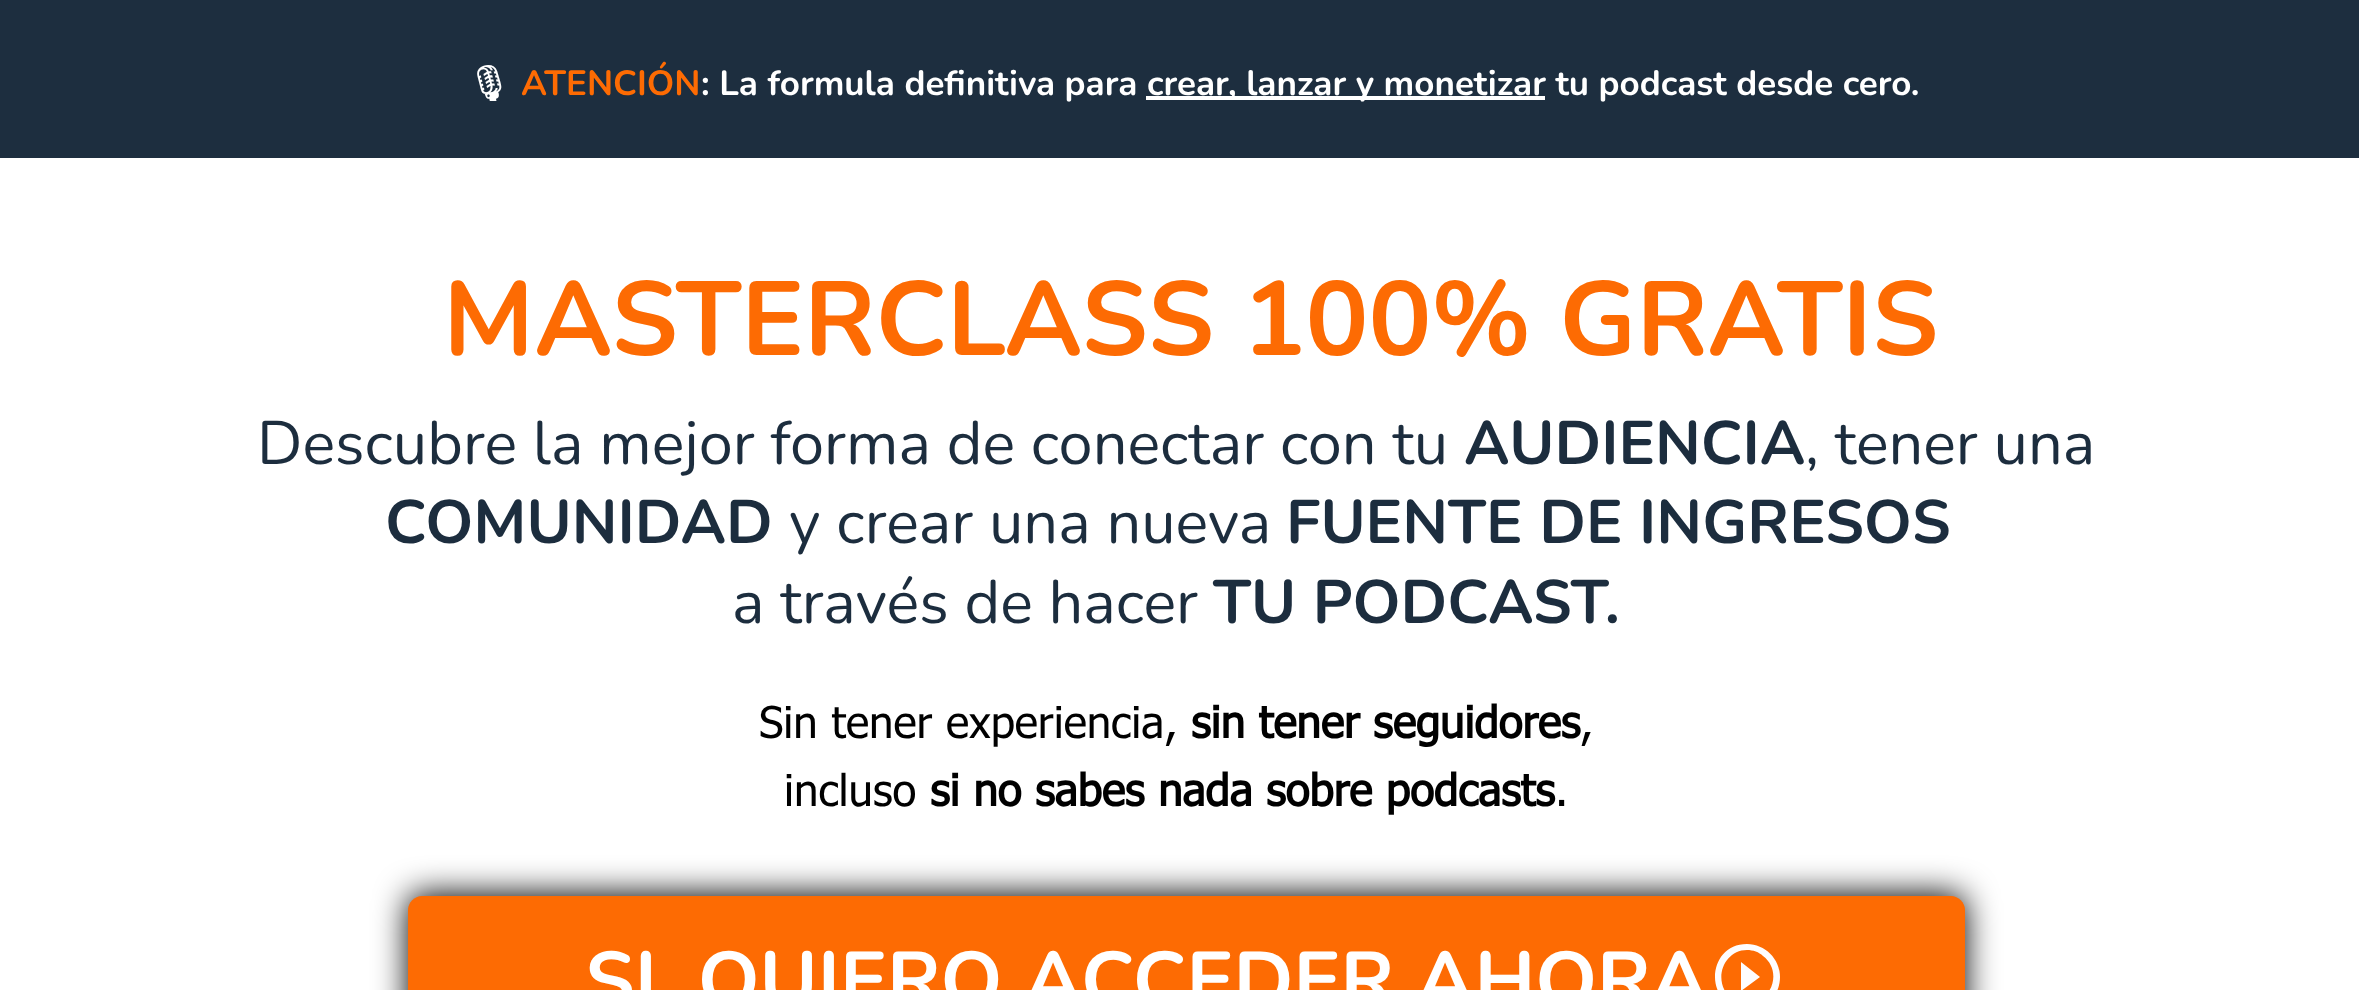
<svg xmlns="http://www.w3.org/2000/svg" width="2359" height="990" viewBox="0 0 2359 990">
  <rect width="100%" height="100%" fill="rgb(255,255,255)"/>
  <rect x="0" y="0" width="2359" height="158" fill="rgb(29,46,63)"/>
  <text x="467" y="95" font-family="Noto Emoji" font-size="35" font-weight="bold" fill="rgb(255,255,255)">🎙</text>
  <text x="521" y="95" font-family="Nunito" font-size="35" font-weight="bold" fill="rgb(253,107,3)">ATENCIÓN</text>
  <text x="701" y="95" font-family="Nunito" font-size="35" font-weight="bold" fill="rgb(255,255,255)">: La formula definitiva para</text>
  <rect x="1146" y="96" width="399" height="4" fill="rgb(255,255,255)"/>
  <text x="1147" y="95" font-family="Nunito" font-size="35" font-weight="bold" fill="rgb(255,255,255)">crear, lanzar y monetizar tu podcast desde cero.</text>
  <text x="443" y="355" font-family="Nunito" font-size="105" font-weight="bold" fill="rgb(253,107,3)">MASTERCLASS 100% GRATIS</text>
  <text x="257" y="464" font-family="Nunito" font-size="61.25" fill="rgb(28,45,62)">Descubre la mejor forma de conectar con tu</text>
  <text x="1464" y="464" font-family="Nunito" font-size="61.25" font-weight="bold" fill="rgb(28,45,62)">AUDIENCIA</text>
  <text x="1805" y="464" font-family="Nunito" font-size="61.25" fill="rgb(28,45,62)">, tener una</text>
  <text x="385" y="543" font-family="Nunito" font-size="61.25" font-weight="bold" fill="rgb(28,45,62)">COMUNIDAD</text>
  <text x="789" y="543" font-family="Nunito" font-size="61.25" fill="rgb(28,45,62)">y crear una nueva</text>
  <text x="1286" y="543" font-family="Nunito" font-size="61.25" font-weight="bold" fill="rgb(28,45,62)">FUENTE DE INGRESOS</text>
  <text x="732" y="623" font-family="Nunito" font-size="61.25" fill="rgb(28,45,62)">a través de hacer</text>
  <text x="1213" y="623" font-family="Nunito" font-size="61.25" font-weight="bold" fill="rgb(28,45,62)">TU PODCAST.</text>
  <text x="759" y="738" font-family="Tahoma" font-size="43.75" fill="rgb(0,0,0)">Sin tener experiencia,</text>
  <text x="1191" y="738" font-family="Tahoma" font-size="43.75" font-weight="bold" fill="rgb(0,0,0)">sin tener seguidores</text>
  <g font-family="Tahoma" font-size="43.75" fill="rgb(0,0,0)">
    <text x="1580" y="738">,</text>
    <text x="784" y="806">incluso</text>
  </g>
  <text x="930" y="806" font-family="Tahoma" font-size="43.75" font-weight="bold" fill="rgb(0,0,0)">si no sabes nada sobre podcasts</text>
  <text x="1555" y="806" font-family="Tahoma" font-size="43.75" fill="rgb(0,0,0)">.</text>
  <rect x="408" y="894" width="1557" height="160" rx="14" fill="rgb(0,0,0)" filter="blur(16.5px)"/>
  <path d="M422 896H1951C1958.5 896 1965 902.5 1965 910V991H408V910C408 902.5 414.5 896 422 896Z" fill="rgb(253,107,3)"/>
  <text x="585" y="1007" font-family="Nunito" font-size="78.75" font-weight="bold" fill="rgb(255,255,255)">SI, QUIERO ACCEDER AHORA</text>
  <path d="M1747 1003C1742 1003 1736 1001 1731 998C1712 982 1723 950 1747 950C1753 950 1759 952 1763 956C1783 971 1772 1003 1747 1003ZM1747 944C1708 944 1703 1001 1741 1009C1749 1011 1758 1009 1766 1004C1775 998 1780 988 1780 977C1780 959 1765 944 1747 944ZM1741 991L1760 977L1741 962Z" fill="rgb(254,253,254)"/>
</svg>
